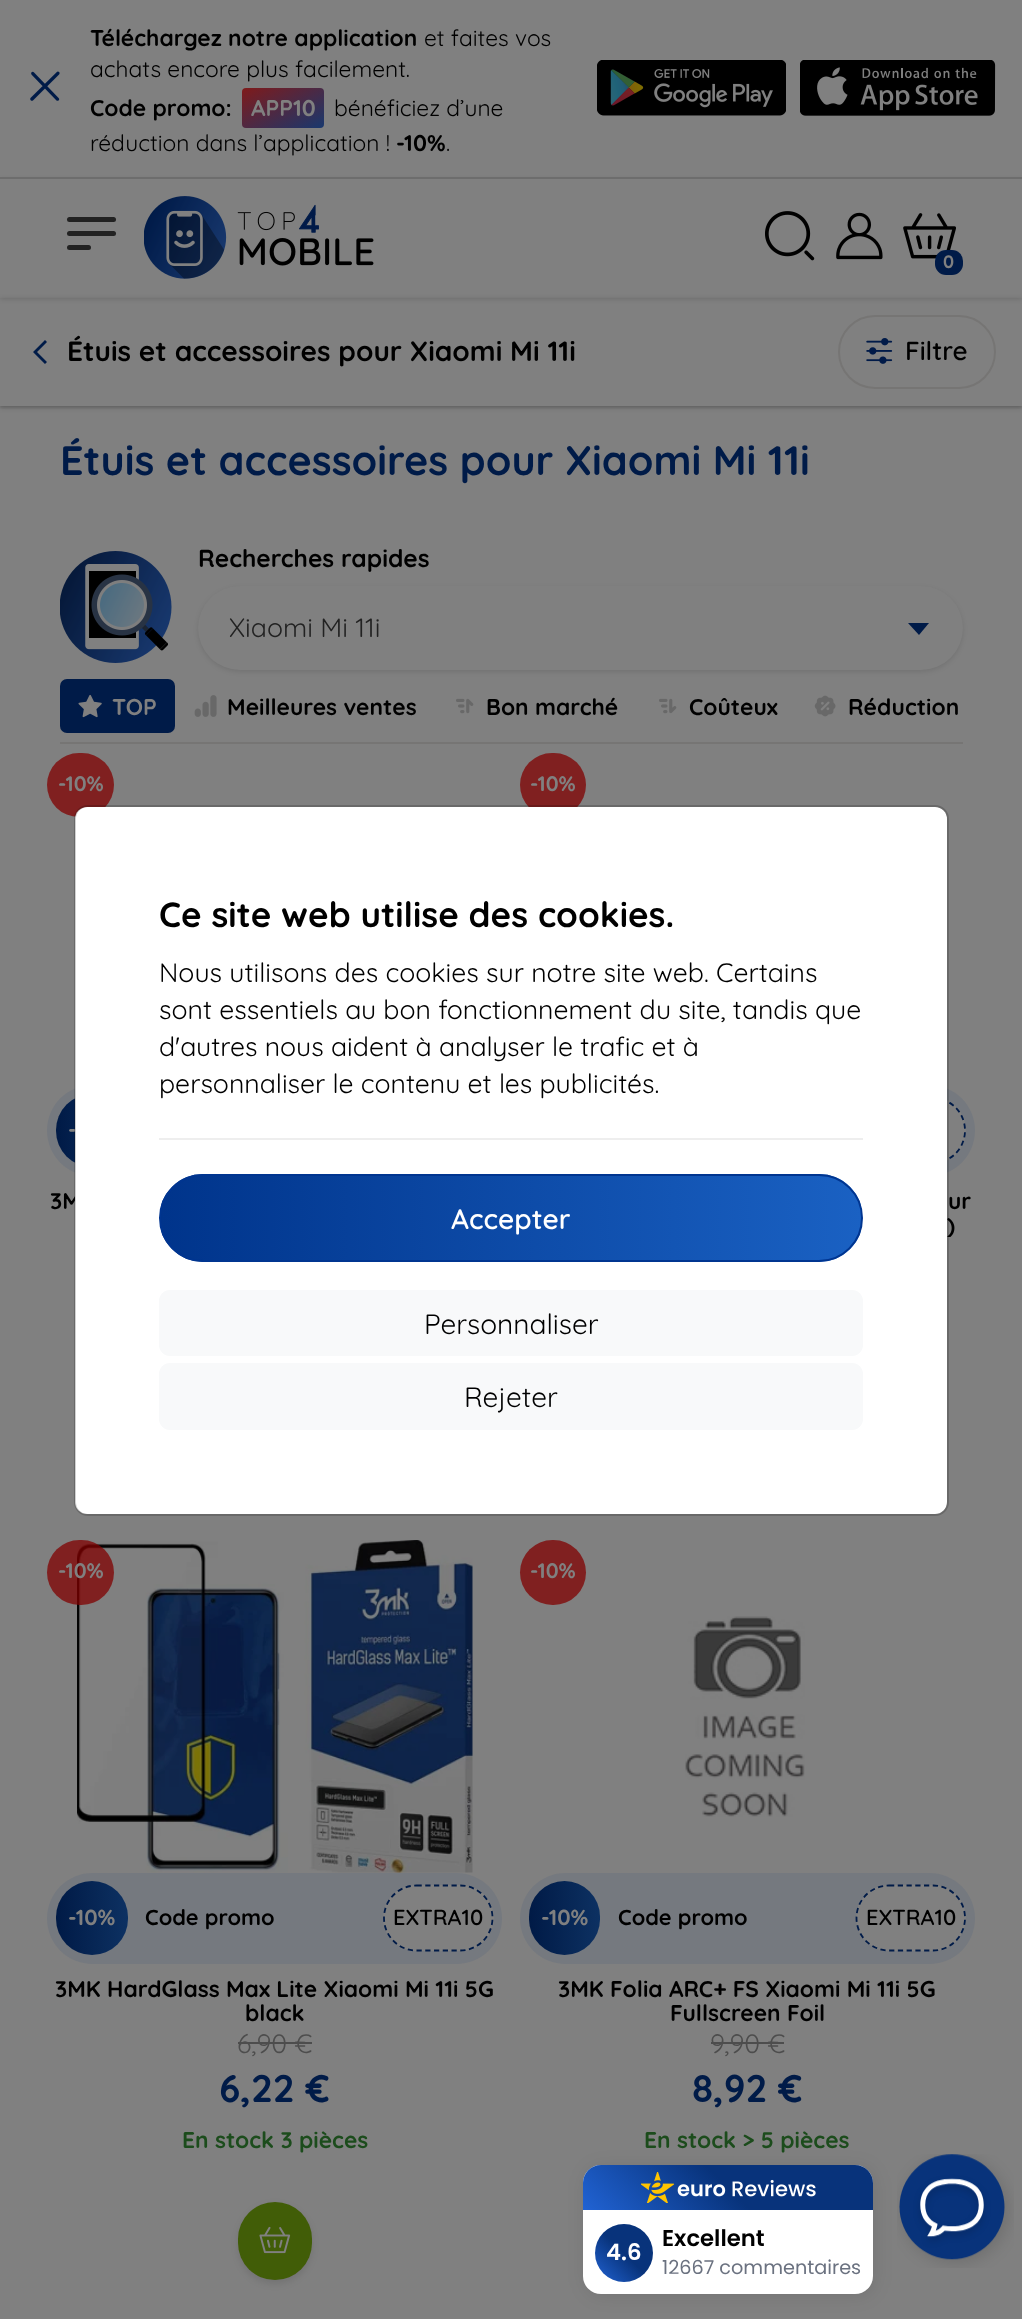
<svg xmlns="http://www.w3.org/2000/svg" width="1022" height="2319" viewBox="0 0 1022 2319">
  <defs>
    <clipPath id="clip1"><path d="M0 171H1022V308H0ZM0 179H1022V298H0Z" clip-rule="evenodd"/></clipPath>
    <linearGradient id="g1" gradientUnits="userSpaceOnUse" x1="302" y1="141" x2="264" y2="75"><stop offset="0" stop-color="rgb(24,56,110)"/><stop offset="1" stop-color="rgb(128,26,26)"/></linearGradient>
    <clipPath id="clip2"><path d="M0 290H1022V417H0ZM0 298H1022V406H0Z" clip-rule="evenodd"/></clipPath>
    <clipPath id="clip3"><rect x="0" y="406" width="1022" height="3"/></clipPath>
    <linearGradient id="g2" gradientUnits="userSpaceOnUse" x1="56" y1="1131" x2="128" y2="1131"><stop offset="0" stop-color="rgb(0,26,70)"/><stop offset="1" stop-color="rgb(13,49,98)"/></linearGradient>
    <clipPath id="clip4"><rect x="520" y="1188" width="455" height="49"/></clipPath>
    <linearGradient id="g3" gradientUnits="userSpaceOnUse" x1="56" y1="1918" x2="128" y2="1918"><stop offset="0" stop-color="rgb(0,26,70)"/><stop offset="1" stop-color="rgb(13,49,98)"/></linearGradient>
    <linearGradient id="g4" gradientUnits="userSpaceOnUse" x1="529" y1="1918" x2="600" y2="1918"><stop offset="0" stop-color="rgb(0,26,70)"/><stop offset="1" stop-color="rgb(13,49,98)"/></linearGradient>
    <clipPath id="clip5"><rect x="159" y="1174" width="704" height="88" rx="44"/></clipPath>
    <linearGradient id="g5" gradientUnits="userSpaceOnUse" x1="161" y1="1218" x2="861" y2="1218"><stop offset="0" stop-color="rgb(0,52,139)"/><stop offset="1" stop-color="rgb(26,97,195)"/></linearGradient>
    <linearGradient id="g6" gradientUnits="userSpaceOnUse" x1="644" y1="2272" x2="812" y2="2104"><stop offset="0" stop-color="rgb(33,99,212)"/><stop offset="0.5" stop-color="rgb(8,51,123)"/></linearGradient>
    <linearGradient id="g7" gradientUnits="userSpaceOnUse" x1="595" y1="2282" x2="653" y2="2224"><stop offset="0" stop-color="rgb(33,99,212)"/><stop offset="0.5" stop-color="rgb(8,51,123)"/></linearGradient>
  </defs>
  <rect width="100%" height="100%" fill="rgb(128,128,128)"/>
  <g clip-path="url(#clip1)">
    <rect x="0" y="180" width="1022" height="119" fill="rgba(0,0,0,0.15)" filter="blur(2.5px)"/>
  </g>
  <rect x="0" y="177" width="1022" height="2" fill="rgb(109,109,109)"/>
  <text x="26" y="114" font-family="Quicksand" font-size="84" font-weight="300" fill="rgb(0,27,72)">×</text>
  <text x="90" y="46" font-family="Quicksand" font-size="22.75" font-weight="bold" fill="rgb(0,0,0)">Téléchargez notre application</text>
  <g font-family="Quicksand" font-size="22.75" fill="rgb(0,0,0)">
    <text x="424" y="46">et faites vos</text>
    <text x="90" y="77">achats encore plus facilement.</text>
  </g>
  <text x="90" y="116" font-family="Quicksand" font-size="22.75" font-weight="bold" fill="rgb(0,0,0)">Code promo:</text>
  <rect x="242" y="88" width="82" height="40" rx="4" fill="url(#g1)"/>
  <text x="251" y="116" font-family="Quicksand" font-size="22.75" font-weight="bold" fill="rgb(128,128,128)">APP10</text>
  <g font-family="Quicksand" font-size="22.75" fill="rgb(0,0,0)">
    <text x="334" y="116">bénéficiez d’une</text>
    <text x="90" y="151">réduction dans l’application !</text>
  </g>
  <text x="396" y="151" font-family="Quicksand" font-size="22.75" font-weight="bold" fill="rgb(0,0,0)">-10%</text>
  <text x="446" y="151" font-family="Quicksand" font-size="22.75" fill="rgb(0,0,0)">.</text>
  <image x="597" y="60" width="189" height="56" href="pic1.png"/>
  <image x="800" y="60" width="196" height="56" href="pic2.png"/>
  <rect x="67" y="217" width="49" height="5" rx="2.5" fill="rgb(34,34,34)"/>
  <rect x="67" y="231" width="49" height="5" rx="2.5" fill="rgb(34,34,34)"/>
  <rect x="67" y="245" width="24" height="5" rx="2.5" fill="rgb(34,34,34)"/>
  <image x="144" y="196" width="230" height="83" href="pic3.png"/>
  <image x="765" y="211" width="50" height="50" href="pic4.png"/>
  <image x="836" y="212" width="47" height="48" href="pic5.png"/>
  <image x="903" y="213" width="53" height="46" href="pic6.png"/>
  <rect x="935" y="250" width="28" height="25" rx="11" fill="rgb(0,27,72)"/>
  <text x="943" y="268" font-family="Quicksand" font-size="18" font-weight="bold" fill="rgb(128,128,128)">0</text>
  <g clip-path="url(#clip2)">
    <rect x="0" y="299" width="1022" height="109" fill="rgba(0,0,0,0.15)" filter="blur(2.5px)"/>
  </g>
  <g clip-path="url(#clip3)">
    <rect x="0" y="299" width="1022" height="109" fill="rgba(0,0,0,0.1)" filter="blur(1px)"/>
  </g>
  <path d="M47 342L45 340L33 352L45 364L47 362L37 352Z" fill="rgb(0,27,72)"/>
  <text x="67" y="361" font-family="Quicksand" font-size="28" font-weight="bold" fill="rgb(0,0,0)">Étuis et accessoires pour Xiaomi Mi 11i</text>
  <rect x="839" y="316" width="156" height="72" rx="36" fill="none" stroke="rgb(118,117,116)" stroke-width="2"/>
  <image x="866" y="338" width="27" height="26" href="pic7.png"/>
  <text x="905" y="360" font-family="Quicksand" font-size="26" font-weight="600" fill="rgb(0,0,0)">Filtre</text>
  <text x="60" y="475" font-family="Quicksand" font-size="41.25" font-weight="bold" fill="rgb(0,27,72)">Étuis et accessoires pour Xiaomi Mi 11i</text>
  <image x="60" y="551" width="112" height="112" href="pic8.png"/>
  <text x="198" y="567" font-family="Quicksand" font-size="24.5" font-weight="bold" fill="rgb(0,0,0)">Recherches rapides</text>
  <rect x="198" y="588" width="765" height="84" rx="42" fill="rgba(0,0,0,0.1)" filter="blur(2.5px)"/>
  <rect x="198" y="586" width="765" height="84" rx="42" fill="rgb(128,128,128)"/>
  <text x="229" y="637" font-family="Quicksand" font-size="26.6" fill="rgb(34,34,34)">Xiaomi Mi 11i</text>
  <path d="M908 623H929L919 635Z" fill="rgb(0,27,72)"/>
  <rect x="60" y="742" width="903" height="2" fill="rgb(118,117,116)"/>
  <rect x="60" y="679" width="115" height="54" rx="7" fill="rgb(0,27,72)"/>
  <image x="78" y="694" width="24" height="24" href="pic9.png"/>
  <text x="112" y="715" font-family="Quicksand" font-size="22.75" font-weight="bold" fill="rgb(128,128,128)">TOP</text>
  <image x="194" y="695" width="23" height="22" href="pic10.png"/>
  <text x="227" y="715" font-family="Quicksand" font-size="22.75" font-weight="bold" fill="rgb(0,0,0)">Meilleures ventes</text>
  <image x="456" y="698" width="18" height="16" href="pic11.png"/>
  <text x="486" y="715" font-family="Quicksand" font-size="22.75" font-weight="bold" fill="rgb(0,0,0)">Bon marché</text>
  <image x="659" y="698" width="18" height="16" href="pic12.png"/>
  <text x="689" y="715" font-family="Quicksand" font-size="22.75" font-weight="bold" fill="rgb(0,0,0)">Coûteux</text>
  <image x="814" y="695" width="22" height="22" href="pic13.png"/>
  <text x="848" y="715" font-family="Quicksand" font-size="22.75" font-weight="bold" fill="rgb(0,0,0)">Réduction</text>
  <rect x="47" y="753" width="67" height="64" rx="32" fill="rgb(128,32,32)"/>
  <text x="58" y="791" font-family="Quicksand" font-size="21" font-weight="bold" fill="rgb(128,128,128)">-10%</text>
  <rect x="47" y="1085" width="455" height="91" rx="45.5" fill="rgb(117,121,127)"/>
  <rect x="56" y="1094" width="72" height="73" rx="36" fill="url(#g2)"/>
  <text x="68" y="1137" font-family="Quicksand" font-size="21.75" font-weight="bold" fill="rgb(128,128,128)">-</text>
  <text x="50" y="1209" font-family="Quicksand" font-size="22.75" font-weight="bold" fill="rgb(0,0,0)">3M</text>
  <rect x="520" y="753" width="66" height="64" rx="32" fill="rgb(128,32,32)"/>
  <text x="530" y="791" font-family="Quicksand" font-size="21" font-weight="bold" fill="rgb(128,128,128)">-10%</text>
  <rect x="520" y="1085" width="455" height="91" rx="45.5" fill="rgb(117,121,127)"/>
  <rect x="856" y="1097" width="110" height="67" rx="33.5" fill="rgb(128,128,128)"/>
  <path d="M889 1098H933C950.5 1098 965 1112.5 965 1130.5C965 1148.5 950.5 1163 933 1163H889C871 1163 856.5 1148.5 856.5 1130.5C856.5 1112.5 871 1098 889 1098Z" fill="none" stroke="rgb(0,27,72)" stroke-width="1.8" stroke-dasharray="5.25 3.5"/>
  <text x="948" y="1209" font-family="Quicksand" font-size="22.75" font-weight="bold" fill="rgb(0,0,0)">ur</text>
  <g clip-path="url(#clip4)">
    <text x="947" y="1234" font-family="Quicksand" font-size="22.75" font-weight="bold" fill="rgb(0,0,0)">)</text>
  </g>
  <image x="77" y="1540" width="396" height="333" href="pic14.png"/>
  <rect x="47" y="1540" width="67" height="65" rx="32.5" fill="rgba(128,0,0,0.75)"/>
  <text x="58" y="1578" font-family="Quicksand" font-size="21" font-weight="bold" fill="rgb(128,128,128)">-10%</text>
  <rect x="47" y="1873" width="455" height="91" rx="45.5" fill="rgb(117,121,127)"/>
  <rect x="56" y="1881" width="72" height="74" rx="36" fill="url(#g3)"/>
  <text x="68" y="1925" font-family="Quicksand" font-size="21.75" font-weight="bold" fill="rgb(128,128,128)">-10%</text>
  <text x="145" y="1925" font-family="Quicksand" font-size="21.75" font-weight="bold" fill="rgb(0,0,0)">Code promo</text>
  <rect x="383" y="1885" width="111" height="66" rx="33" fill="rgb(128,128,128)"/>
  <path d="M416.5 1885.5H460C478 1885.5 492.5 1900 492.5 1918C492.5 1936 478 1950.5 460 1950.5H416.5C398.5 1950.5 384 1936 384 1918C384 1900 398.5 1885.5 416.5 1885.5Z" fill="none" stroke="rgb(0,27,72)" stroke-width="1.8" stroke-dasharray="5.25 3.5"/>
  <text x="393" y="1925" font-family="Quicksand" font-size="21.75" font-weight="600" fill="rgb(0,0,0)">EXTRA10</text>
  <g font-family="Quicksand" font-size="22.75" font-weight="bold" fill="rgb(0,0,0)">
    <text x="55" y="1997">3MK HardGlass Max Lite Xiaomi Mi 11i 5G</text>
    <text x="245" y="2021">black</text>
  </g>
  <text x="237" y="2053" font-family="Quicksand" font-size="26.6" fill="rgb(77,77,77)">6,90 €</text>
  <rect x="238" y="2042" width="74" height="2" fill="rgb(77,77,77)"/>
  <text x="219" y="2102" font-family="Quicksand" font-size="38.5" font-weight="bold" fill="rgb(0,27,72)">6,22 €</text>
  <text x="182" y="2148" font-family="Quicksand" font-size="22.75" font-weight="bold" fill="rgb(28,76,28)">En stock 3 pièces</text>
  <rect x="238" y="2205" width="74" height="79" rx="37" fill="rgba(0,0,0,0.1)" filter="blur(3.5px)"/>
  <rect x="238" y="2202" width="74" height="78" rx="37" fill="rgb(65,93,7)"/>
  <image x="259" y="2226" width="32" height="28" href="pic15.png"/>
  <rect x="520" y="1540" width="66" height="65" rx="32.5" fill="rgb(128,32,32)"/>
  <text x="530" y="1578" font-family="Quicksand" font-size="21" font-weight="bold" fill="rgb(128,128,128)">-10%</text>
  <image x="685" y="1616" width="120" height="201" href="pic16.png"/>
  <rect x="520" y="1873" width="455" height="91" rx="45.5" fill="rgb(117,121,127)"/>
  <rect x="529" y="1881" width="71" height="74" rx="35.5" fill="url(#g4)"/>
  <text x="541" y="1925" font-family="Quicksand" font-size="21.75" font-weight="bold" fill="rgb(128,128,128)">-10%</text>
  <text x="618" y="1925" font-family="Quicksand" font-size="21.75" font-weight="bold" fill="rgb(0,0,0)">Code promo</text>
  <rect x="856" y="1885" width="110" height="66" rx="33" fill="rgb(128,128,128)"/>
  <path d="M889 1885.5H933C950.5 1885.5 965 1900 965 1918C965 1936 950.5 1950.5 933 1950.5H889C871 1950.5 856.5 1936 856.5 1918C856.5 1900 871 1885.5 889 1885.5Z" fill="none" stroke="rgb(0,27,72)" stroke-width="1.8" stroke-dasharray="5.25 3.5"/>
  <text x="866" y="1925" font-family="Quicksand" font-size="21.75" font-weight="600" fill="rgb(0,0,0)">EXTRA10</text>
  <g font-family="Quicksand" font-size="22.75" font-weight="bold" fill="rgb(0,0,0)">
    <text x="558" y="1997">3MK Folia ARC+ FS Xiaomi Mi 11i 5G</text>
    <text x="670" y="2021">Fullscreen Foil</text>
  </g>
  <text x="710" y="2053" font-family="Quicksand" font-size="26.6" fill="rgb(77,77,77)">9,90 €</text>
  <rect x="711" y="2042" width="73" height="2" fill="rgb(77,77,77)"/>
  <text x="692" y="2102" font-family="Quicksand" font-size="38.5" font-weight="bold" fill="rgb(0,27,72)">8,92 €</text>
  <text x="644" y="2148" font-family="Quicksand" font-size="22.75" font-weight="bold" fill="rgb(28,76,28)">En stock &gt; 5 pièces</text>
  <rect x="75" y="807" width="872" height="707" rx="12" fill="rgb(255,255,255)"/>
  <rect x="75" y="806" width="873" height="709" rx="13" fill="none" stroke="rgba(0,0,0,0.18)" stroke-width="2"/>
  <text x="159" y="927" font-family="Quicksand" font-size="35" font-weight="bold" fill="rgb(0,0,0)">Ce site web utilise des cookies.</text>
  <g font-family="Quicksand" font-size="26.6" fill="rgb(0,0,0)">
    <text>
      <tspan x="159" y="982">Nous utilisons des cookies sur notre site web. Certains</tspan>
      <tspan x="159" y="1019">sont essentiels au bon fonctionnement du site, tandis que</tspan>
      <tspan x="159" y="1056">d'autres nous aident à analyser le trafic et à</tspan>
      <tspan x="159" y="1093">personnaliser le contenu et les publicités.</tspan>
    </text>
  </g>
  <rect x="159" y="1138" width="704" height="2" fill="rgb(238,238,238)"/>
  <g clip-path="url(#clip5)">
    <rect x="161" y="1174" width="700" height="88" fill="url(#g5)"/>
  </g>
  <rect x="160" y="1175" width="702" height="86" rx="43" fill="none" stroke="rgb(0,53,144)" stroke-width="2"/>
  <text x="451" y="1229" font-family="Quicksand" font-size="28" font-weight="600" fill="rgb(255,255,255)">Accepter</text>
  <rect x="159" y="1290" width="704" height="66" rx="11" fill="rgb(248,249,250)"/>
  <text x="424" y="1334" font-family="Quicksand" font-size="28" fill="rgb(0,0,0)">Personnaliser</text>
  <rect x="159" y="1363" width="704" height="67" rx="11" fill="rgb(248,249,250)"/>
  <text x="464" y="1407" font-family="Quicksand" font-size="28" fill="rgb(0,0,0)">Rejeter</text>
  <rect x="585" y="2167" width="290" height="129" rx="18" fill="rgba(0,0,0,0.09)" filter="blur(9px)"/>
  <rect x="583" y="2165" width="290" height="129" rx="18" fill="rgb(255,255,255)"/>
  <path d="M601 2165H855C865 2165 873 2173 873 2183V2210H583V2183C583 2173 591 2165 601 2165Z" fill="url(#g6)"/>
  <image x="641" y="2172" width="175" height="31" href="pic17.png"/>
  <circle cx="624" cy="2253" r="29" fill="url(#g7)"/>
  <text x="606" y="2260" font-family="Poppins" font-size="22.75" font-weight="600" fill="rgb(255,255,255)">4.6</text>
  <text x="662" y="2246" font-family="Poppins" font-size="22.75" font-weight="600" fill="rgb(0,0,0)">Excellent</text>
  <text x="662" y="2274" font-family="Poppins" font-size="19.25" fill="rgb(107,114,128)">12667 commentaires</text>
  <image x="897" y="2154" width="117" height="114" href="pic18.png"/>
</svg>
